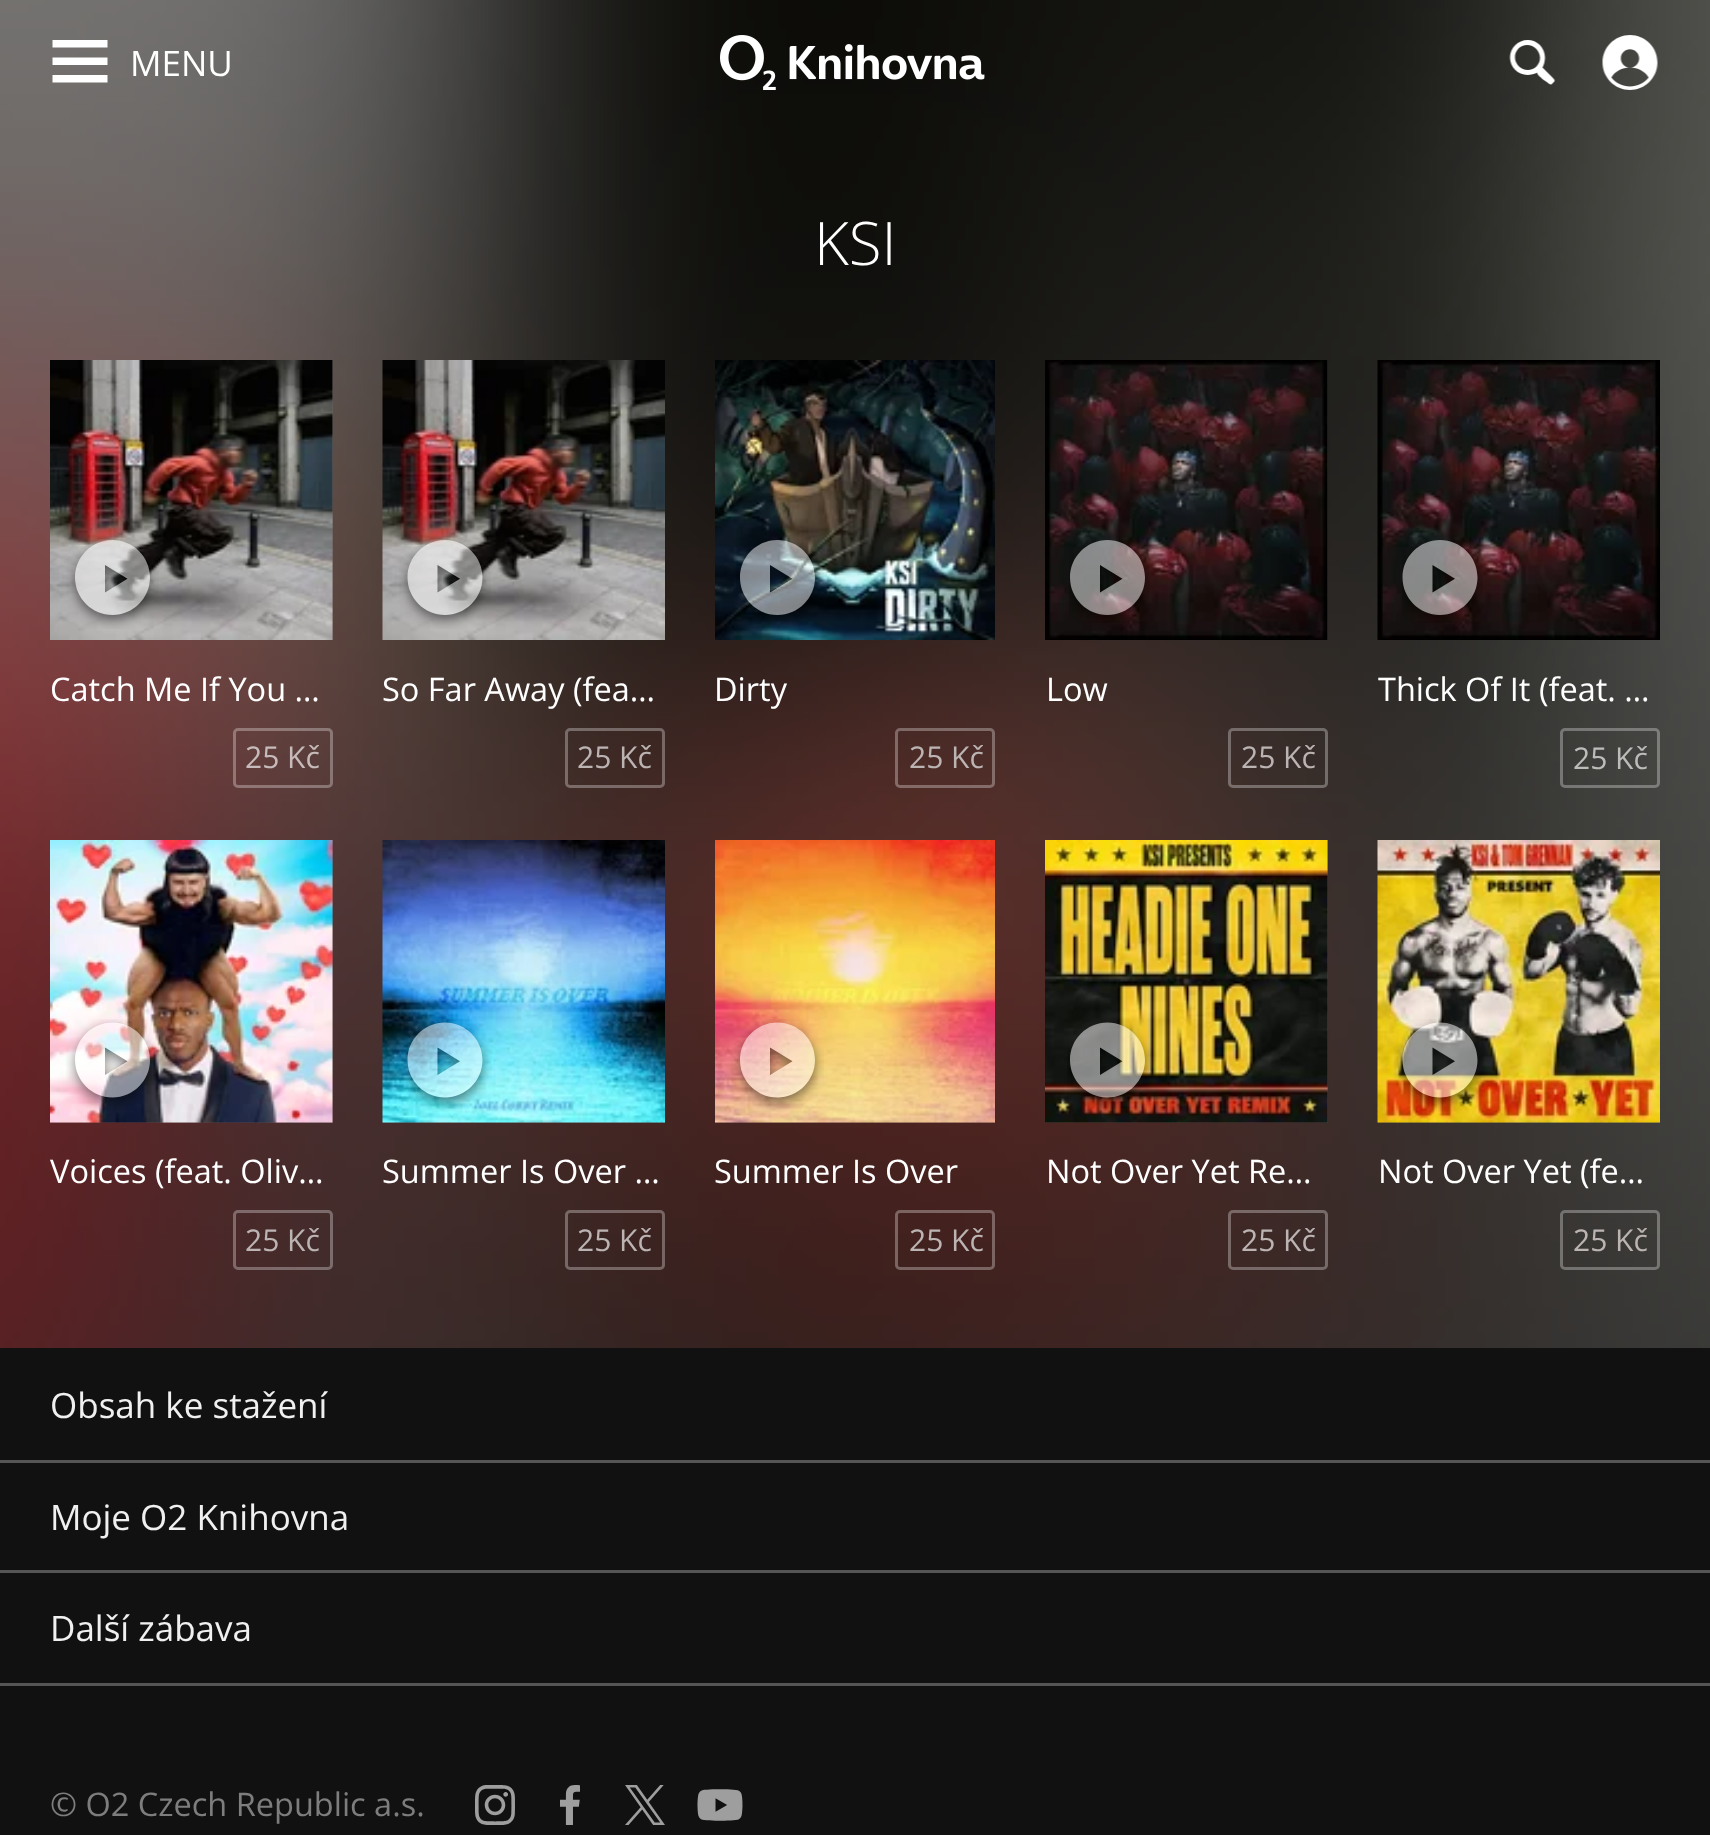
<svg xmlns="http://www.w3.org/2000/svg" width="1710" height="1835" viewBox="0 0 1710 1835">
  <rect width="100%" height="100%" fill="rgb(255,255,255)"/>
  <image x="0" y="0" width="1710" height="1348" href="pic1.png"/>
  <image x="52" y="40" width="56" height="43" href="pic2.png"/>
  <text x="130" y="76" font-family="Open Sans" font-size="35" fill="rgb(255,255,255)">MENU</text>
  <image x="720" y="35" width="265" height="55" href="pic3.png"/>
  <image x="1509" y="40" width="47" height="45" href="pic4.png"/>
  <image x="1602" y="35" width="56" height="55" href="pic5.png"/>
  <text x="814" y="265" font-family="Open Sans" font-size="60" font-weight="300" fill="rgb(255,255,255)">KSI</text>
  <rect x="332" y="360" width="1" height="280" fill="rgba(255,255,255,0.1)"/>
  <image x="50" y="360" width="283" height="280" href="pic7.png"/>
  <image x="66" y="536" width="93" height="93" href="pic6.png"/>
  <text x="50" y="701" font-family="Open Sans" font-size="32.5" fill="rgb(255,255,255)">Catch Me If You …</text>
  <rect x="234.5" y="729.5" width="97" height="57" rx="3.5" fill="none" stroke="rgba(255,255,255,0.3)" stroke-width="3"/>
  <text x="245" y="768" font-family="Open Sans" font-size="30" fill="rgb(198,187,186)">25 Kč</text>
  <image x="382" y="360" width="283" height="280" href="pic9.png"/>
  <image x="399" y="536" width="92" height="93" href="pic8.png"/>
  <text x="382" y="701" font-family="Open Sans" font-size="32.5" fill="rgb(255,255,255)">So Far Away (fea…</text>
  <rect x="566.5" y="729.5" width="97" height="57" rx="3.5" fill="none" stroke="rgba(255,255,255,0.3)" stroke-width="3"/>
  <text x="577" y="768" font-family="Open Sans" font-size="30" fill="rgb(187,180,179)">25 Kč</text>
  <image x="715" y="360" width="280" height="280" href="pic11.png"/>
  <image x="736" y="538" width="88" height="88" href="pic10.png"/>
  <text x="714" y="701" font-family="Open Sans" font-size="32.5" fill="rgb(255,255,255)">Dirty</text>
  <rect x="896.5" y="729.5" width="97" height="57" rx="3.5" fill="none" stroke="rgba(255,255,255,0.3)" stroke-width="3"/>
  <text x="909" y="768" font-family="Open Sans" font-size="30" fill="rgb(187,180,179)">25 Kč</text>
  <rect x="1327" y="360" width="1" height="280" fill="rgba(255,255,255,0.1)"/>
  <image x="1045" y="360" width="283" height="280" href="pic13.png"/>
  <image x="1069" y="540" width="81" height="83" href="pic12.png"/>
  <text x="1046" y="701" font-family="Open Sans" font-size="32.5" fill="rgb(255,255,255)">Low</text>
  <rect x="1229.5" y="729.5" width="97" height="57" rx="3.5" fill="none" stroke="rgba(255,255,255,0.3)" stroke-width="3"/>
  <text x="1241" y="768" font-family="Open Sans" font-size="30" fill="rgb(187,180,179)">25 Kč</text>
  <image x="1377" y="360" width="283" height="280" href="pic15.png"/>
  <image x="1402" y="540" width="81" height="83" href="pic14.png"/>
  <text x="1378" y="701" font-family="Open Sans" font-size="32.5" fill="rgb(255,255,255)">Thick Of It (feat. …</text>
  <rect x="1561.5" y="729.5" width="97" height="57" rx="3.5" fill="none" stroke="rgba(255,255,255,0.3)" stroke-width="3"/>
  <text x="1573" y="769" font-family="Open Sans" font-size="30" fill="rgb(188,188,187)">25 Kč</text>
  <rect x="50" y="840" width="283" height="283" fill="rgba(255,255,255,0.1)"/>
  <image x="50" y="840" width="283" height="283" href="pic17.png"/>
  <image x="66" y="1019" width="93" height="91" href="pic16.png"/>
  <text x="50" y="1183" font-family="Open Sans" font-size="32.5" fill="rgb(255,255,255)">Voices (feat. Oliv…</text>
  <rect x="234.5" y="1211.5" width="97" height="57" rx="3.5" fill="none" stroke="rgba(255,255,255,0.3)" stroke-width="3"/>
  <text x="245" y="1251" font-family="Open Sans" font-size="30" fill="rgb(187,180,179)">25 Kč</text>
  <rect x="383" y="1122" width="282" height="1" fill="rgba(255,255,255,0.1)"/>
  <image x="382" y="840" width="283" height="283" href="pic19.png"/>
  <image x="399" y="1019" width="93" height="93" href="pic18.png"/>
  <text x="382" y="1183" font-family="Open Sans" font-size="32.5" fill="rgb(255,255,255)">Summer Is Over …</text>
  <rect x="566.5" y="1211.5" width="97" height="57" rx="3.5" fill="none" stroke="rgba(255,255,255,0.3)" stroke-width="3"/>
  <text x="577" y="1251" font-family="Open Sans" font-size="30" fill="rgb(187,180,179)">25 Kč</text>
  <rect x="715" y="1122" width="280" height="1" fill="rgba(255,255,255,0.1)"/>
  <image x="715" y="840" width="280" height="283" href="pic21.png"/>
  <image x="731" y="1019" width="93" height="93" href="pic20.png"/>
  <text x="714" y="1183" font-family="Open Sans" font-size="32.5" fill="rgb(255,255,255)">Summer Is Over</text>
  <rect x="896.5" y="1211.5" width="97" height="57" rx="3.5" fill="none" stroke="rgba(255,255,255,0.3)" stroke-width="3"/>
  <text x="909" y="1251" font-family="Open Sans" font-size="30" fill="rgb(187,180,179)">25 Kč</text>
  <rect x="1045" y="840" width="283" height="283" fill="rgba(255,255,255,0.1)"/>
  <image x="1045" y="840" width="283" height="283" href="pic23.png"/>
  <image x="1067" y="1021" width="85" height="91" href="pic22.png"/>
  <text x="1046" y="1183" font-family="Open Sans" font-size="32.5" fill="rgb(255,255,255)">Not Over Yet Re…</text>
  <rect x="1229.5" y="1211.5" width="97" height="57" rx="3.5" fill="none" stroke="rgba(255,255,255,0.3)" stroke-width="3"/>
  <text x="1241" y="1251" font-family="Open Sans" font-size="30" fill="rgb(187,180,179)">25 Kč</text>
  <rect x="1378" y="1122" width="282" height="1" fill="rgba(255,255,255,0.1)"/>
  <image x="1377" y="840" width="283" height="283" href="pic25.png"/>
  <image x="1394" y="1019" width="91" height="93" href="pic24.png"/>
  <text x="1378" y="1183" font-family="Open Sans" font-size="32.5" fill="rgb(255,255,255)">Not Over Yet (fe…</text>
  <rect x="1561.5" y="1211.5" width="97" height="57" rx="3.5" fill="none" stroke="rgba(255,255,255,0.3)" stroke-width="3"/>
  <text x="1573" y="1251" font-family="Open Sans" font-size="30" fill="rgb(187,180,179)">25 Kč</text>
  <rect x="0" y="1348" width="1710" height="487" fill="rgb(17,17,17)"/>
  <rect x="0" y="1460" width="1710" height="3" fill="rgb(85,85,85)"/>
  <text x="50" y="1418" font-family="Open Sans" font-size="35" fill="rgb(240,240,240)">Obsah ke stažení</text>
  <rect x="0" y="1570" width="1710" height="3" fill="rgb(85,85,85)"/>
  <text x="50" y="1530" font-family="Open Sans" font-size="35" fill="rgb(240,240,240)">Moje O2 Knihovna</text>
  <rect x="0" y="1683" width="1710" height="3" fill="rgb(85,85,85)"/>
  <text x="50" y="1641" font-family="Open Sans" font-size="35" fill="rgb(240,240,240)">Další zábava</text>
  <text x="50" y="1816" font-family="Open Sans" font-size="32.5" fill="rgb(125,125,125)">© O2 Czech Republic a.s.</text>
  <image x="475" y="1785" width="40" height="40" href="pic26.png"/>
  <image x="560" y="1785" width="20" height="40" href="pic27.png"/>
  <image x="625" y="1785" width="40" height="40" href="pic28.png"/>
  <image x="697" y="1789" width="46" height="32" href="pic29.png"/>
</svg>
